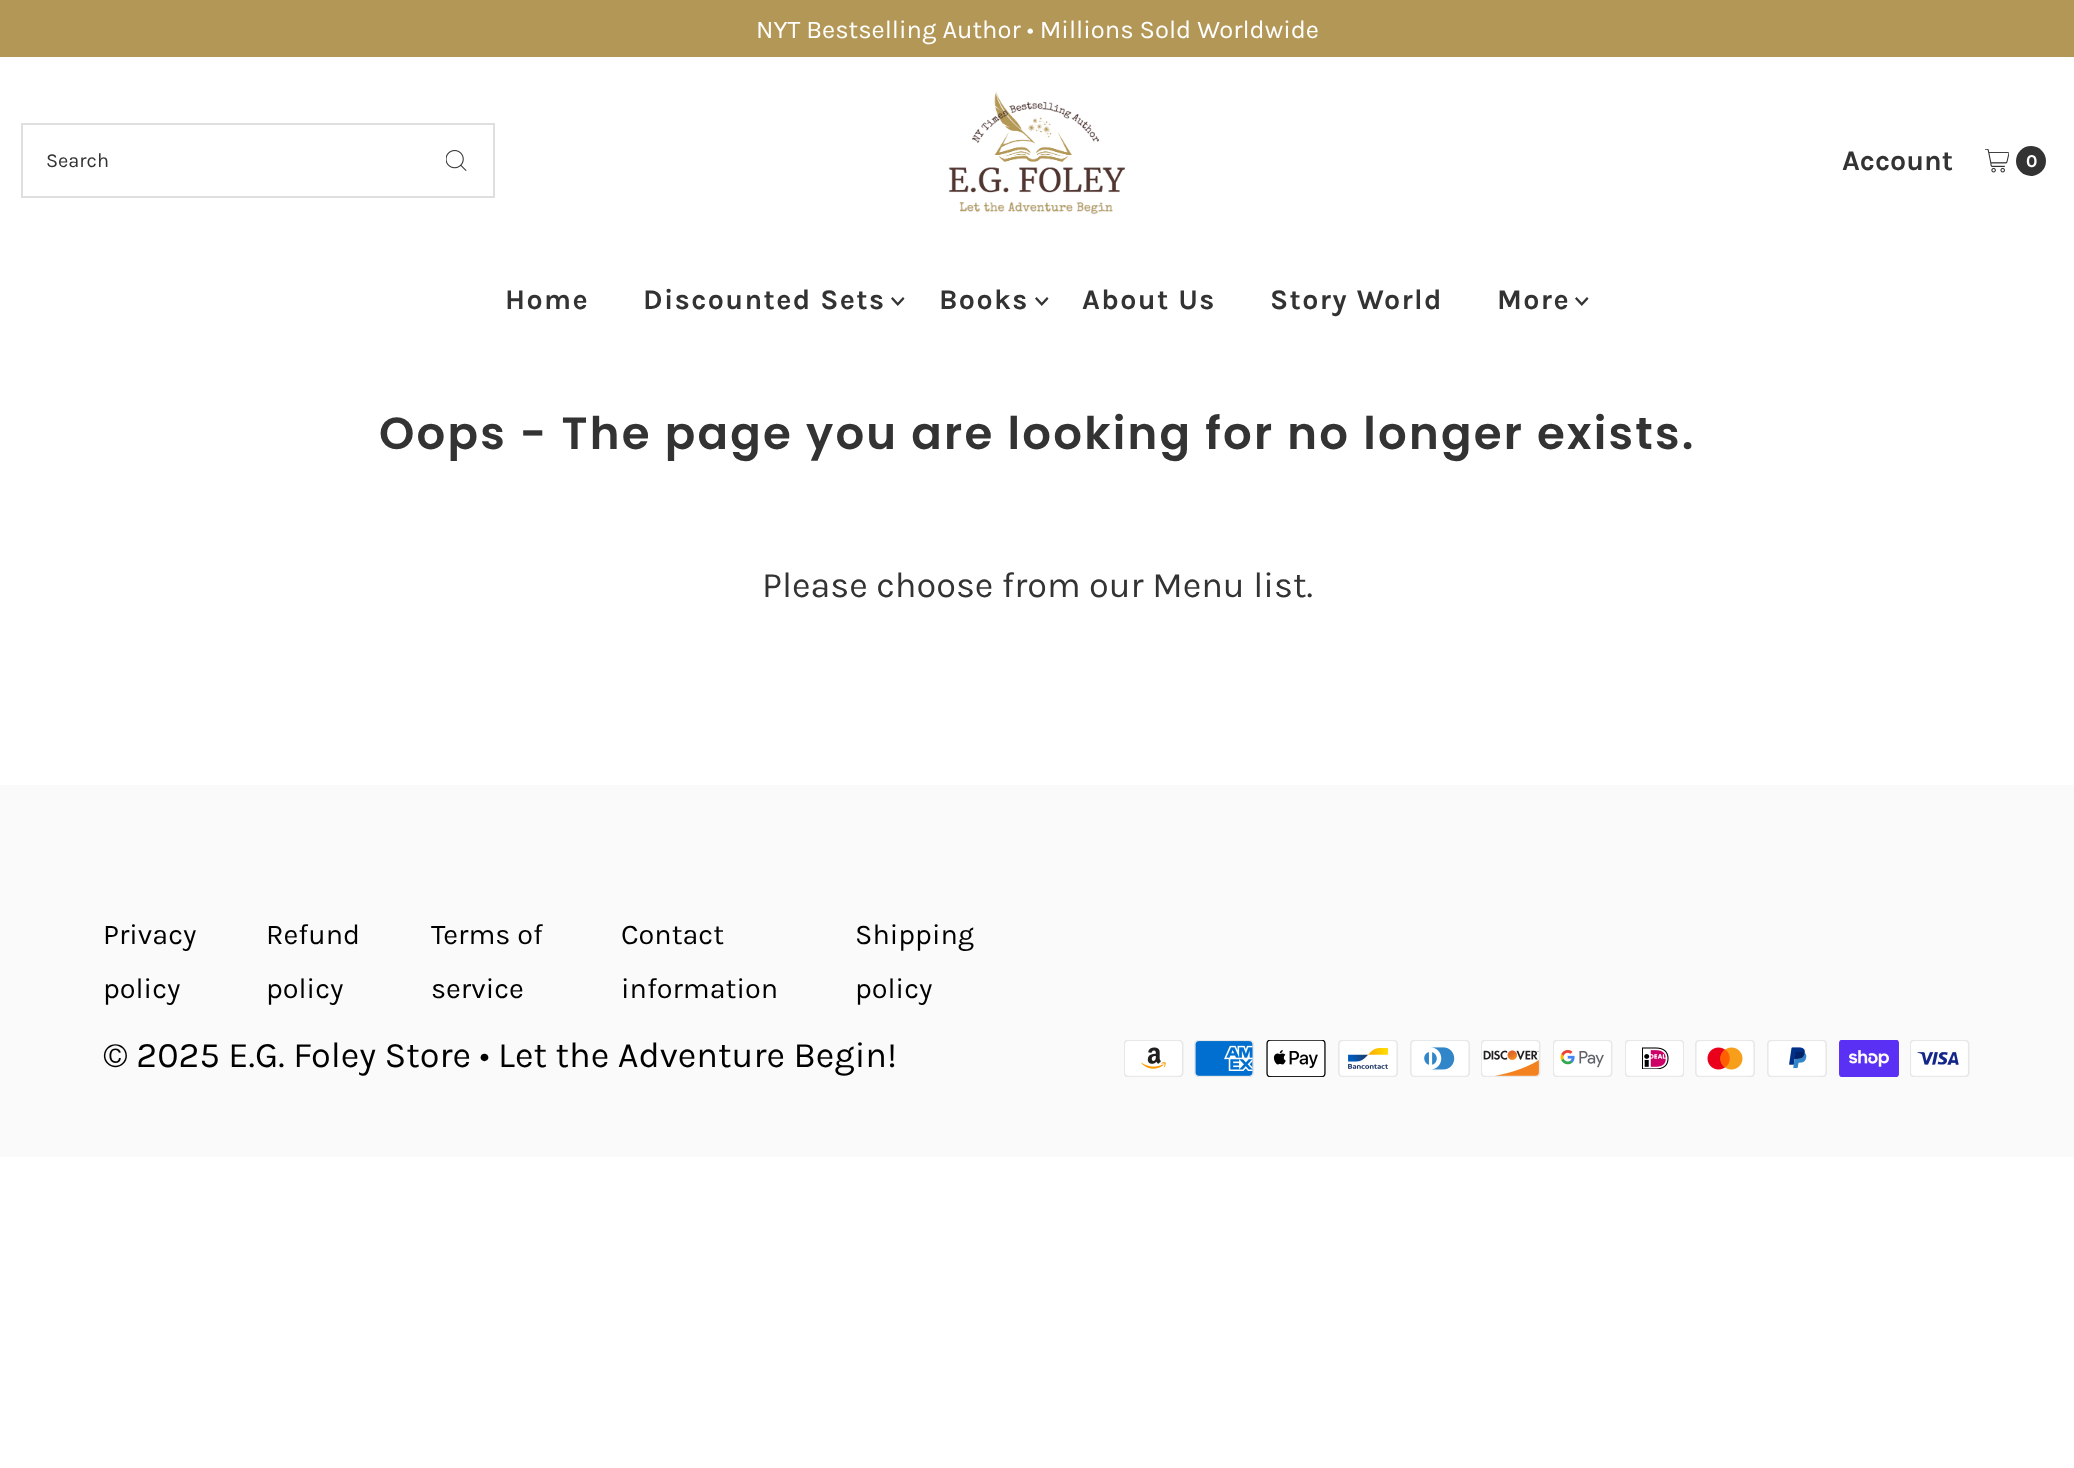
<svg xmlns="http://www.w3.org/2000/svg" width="2074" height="1468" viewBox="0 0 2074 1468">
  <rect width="100%" height="100%" fill="rgb(255,255,255)"/>
  <rect x="0" y="0" width="2074" height="57" fill="rgb(179,151,86)"/>
  <text x="756" y="38" font-family="Karla" font-size="25.5" fill="rgb(255,255,255)">NYT Bestselling Author • Millions Sold Worldwide</text>
  <rect x="22" y="124" width="472" height="73" fill="none" stroke="rgb(223,223,223)" stroke-width="2"/>
  <text x="46" y="167" font-family="Karla" font-size="20" fill="rgb(51,51,51)">Search</text>
  <image x="446" y="150" width="21" height="21" href="pic1.png"/>
  <image x="948" y="91" width="177" height="124" href="pic2.png"/>
  <text x="1842" y="170" font-family="Karla" font-size="28.5" font-weight="bold" fill="rgb(51,51,51)">Account</text>
  <image x="1985" y="149" width="24" height="24" href="pic3.png"/>
  <circle cx="2031" cy="161" r="15" fill="rgb(51,51,51)"/>
  <text x="2026" y="167" font-family="Karla" font-size="18" font-weight="bold" fill="rgb(255,255,255)">0</text>
  <g font-family="Karla" font-size="28.5" font-weight="bold" letter-spacing="1.4" fill="rgb(51,51,51)">
    <text x="505" y="309">Home</text>
    <text x="643" y="309">Discounted Sets</text>
  </g>
  <image x="891" y="297" width="14" height="9" href="pic4.png"/>
  <text x="939" y="309" font-family="Karla" font-size="28.5" font-weight="bold" letter-spacing="1.4" fill="rgb(51,51,51)">Books</text>
  <image x="1035" y="297" width="14" height="9" href="pic4.png"/>
  <g font-family="Karla" font-size="28.5" font-weight="bold" letter-spacing="1.4" fill="rgb(51,51,51)">
    <text x="1082" y="309">About Us</text>
    <text x="1270" y="309">Story World</text>
    <text x="1497" y="309">More</text>
  </g>
  <image x="1575" y="297" width="14" height="9" href="pic4.png"/>
  <text x="379" y="449" font-family="Poppins" font-size="45" font-weight="600" letter-spacing="2.25" fill="rgb(51,51,51)">Oops - The page you are looking for no longer exists.</text>
  <text x="762" y="597" font-family="Karla" font-size="36" fill="rgb(51,51,51)">Please choose from our Menu list.</text>
  <rect x="0" y="785" width="2074" height="372" fill="rgb(250,250,250)"/>
  <g font-family="Karla" font-size="28.75" fill="rgb(0,0,0)">
    <text>
      <tspan x="103" y="944">Privacy</tspan>
      <tspan x="103" y="998">policy</tspan>
    </text>
    <text>
      <tspan x="266" y="944">Refund</tspan>
      <tspan x="266" y="998">policy</tspan>
    </text>
    <text>
      <tspan x="431" y="944">Terms of</tspan>
      <tspan x="431" y="998">service</tspan>
    </text>
    <text>
      <tspan x="621" y="944">Contact</tspan>
      <tspan x="621" y="998">information</tspan>
    </text>
    <text>
      <tspan x="855" y="944">Shipping</tspan>
      <tspan x="855" y="998">policy</tspan>
    </text>
  </g>
  <text x="103" y="1067" font-family="Karla" font-size="36" fill="rgb(0,0,0)">© 2025 E.G. Foley Store • Let the Adventure Begin!</text>
  <image x="1124" y="1040" width="60" height="37" href="pic5.png"/>
  <image x="1194" y="1040" width="60" height="37" href="pic6.png"/>
  <image x="1266" y="1040" width="60" height="37" href="pic7.png"/>
  <image x="1338" y="1040" width="60" height="37" href="pic8.png"/>
  <image x="1410" y="1040" width="60" height="37" href="pic9.png"/>
  <image x="1481" y="1040" width="60" height="37" href="pic10.png"/>
  <image x="1553" y="1040" width="60" height="37" href="pic11.png"/>
  <image x="1625" y="1040" width="59" height="37" href="pic12.png"/>
  <image x="1695" y="1040" width="60" height="37" href="pic13.png"/>
  <image x="1767" y="1040" width="60" height="37" href="pic14.png"/>
  <image x="1839" y="1040" width="60" height="37" href="pic15.png"/>
  <image x="1910" y="1040" width="60" height="37" href="pic16.png"/>
</svg>
